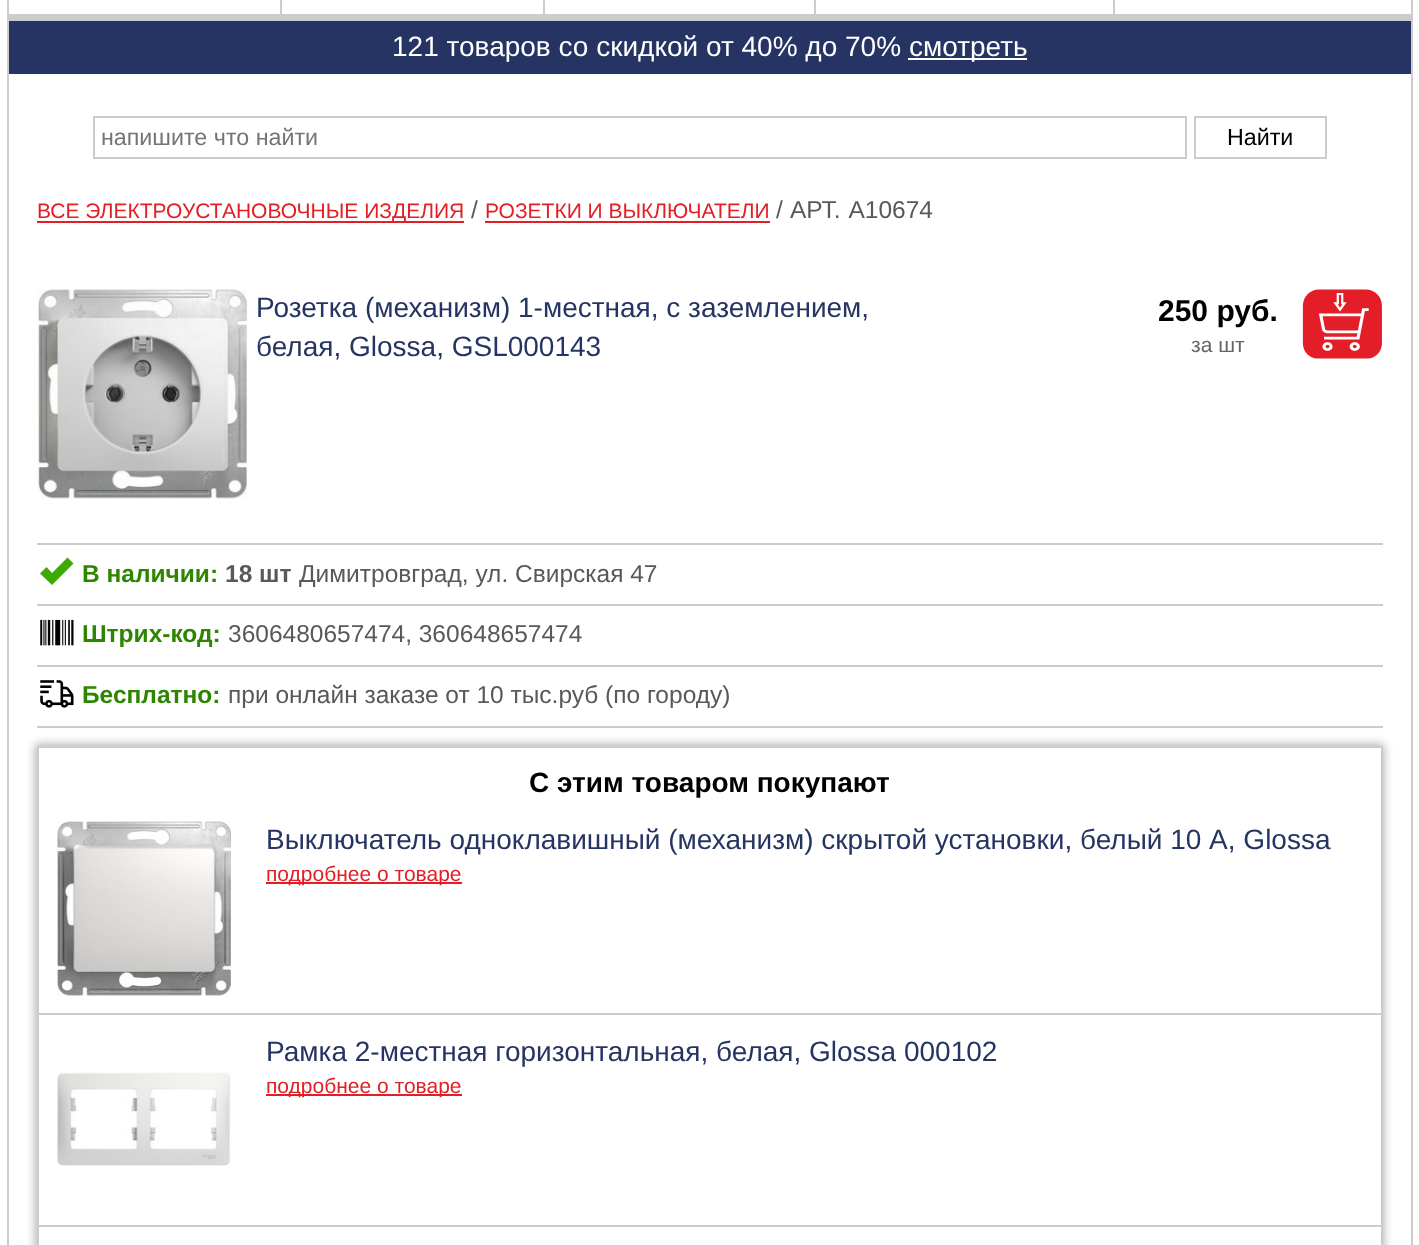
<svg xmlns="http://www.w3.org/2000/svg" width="1419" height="1245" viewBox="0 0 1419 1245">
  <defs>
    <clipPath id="clip1"><path d="M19 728H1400V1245H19ZM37 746H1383V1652H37Z" clip-rule="evenodd"/></clipPath>
  </defs>
  <rect width="100%" height="100%" fill="rgb(255,255,255)"/>
  <rect x="1411" y="0" width="2" height="1245" fill="rgb(204,204,204)"/>
  <rect x="7" y="16" width="1405" height="5" fill="rgb(204,204,204)"/>
  <rect x="7" y="0" width="2" height="1245" fill="rgb(204,204,204)"/>
  <rect x="9" y="14" width="1402" height="2" fill="rgb(204,204,204)"/>
  <rect x="280" y="0" width="2" height="14" fill="rgb(204,204,204)"/>
  <rect x="543" y="0" width="2" height="14" fill="rgb(204,204,204)"/>
  <rect x="814" y="0" width="2" height="14" fill="rgb(204,204,204)"/>
  <rect x="1113" y="0" width="2" height="14" fill="rgb(204,204,204)"/>
  <rect x="9" y="21" width="1402" height="53" fill="rgb(38,52,99)"/>
  <text x="392" y="56" font-family="Liberation Sans" font-size="28" fill="rgb(255,255,255)">121 товаров со скидкой от 40% до 70%</text>
  <rect x="908" y="58" width="119" height="2" fill="rgb(255,255,255)"/>
  <text x="909" y="56" font-family="Liberation Sans" font-size="28" fill="rgb(255,255,255)">смотреть</text>
  <rect x="94" y="117" width="1092" height="41" fill="none" stroke="rgb(204,204,204)" stroke-width="2"/>
  <text x="101" y="145" font-family="Liberation Sans" font-size="23.25" fill="rgb(117,117,117)">напишите что найти</text>
  <rect x="1195" y="117" width="131" height="41" fill="none" stroke="rgb(204,204,204)" stroke-width="2"/>
  <text x="1227" y="145" font-family="Liberation Sans" font-size="23.25" fill="rgb(0,0,0)">Найти</text>
  <rect x="37" y="221" width="427" height="2" fill="rgb(227,30,36)"/>
  <text x="37" y="218" font-family="Liberation Sans" font-size="21" fill="rgb(227,30,36)">ВСЕ ЭЛЕКТРОУСТАНОВОЧНЫЕ ИЗДЕЛИЯ</text>
  <text x="471" y="218" font-family="Liberation Sans" font-size="24.5" fill="rgb(89,89,89)">/</text>
  <text x="485" y="218" font-family="Liberation Sans" font-size="21" fill="rgb(227,30,36)">РОЗЕТКИ И ВЫКЛЮЧАТЕЛИ</text>
  <rect x="485" y="221" width="285" height="2" fill="rgb(227,30,36)"/>
  <g font-family="Liberation Sans" font-size="24.5" fill="rgb(89,89,89)">
    <text x="776" y="218">/</text>
    <text x="790" y="218" word-spacing="1">АРТ. A10674</text>
  </g>
  <rect x="37" y="543" width="1346" height="2" fill="rgb(204,204,204)"/>
  <image x="37" y="289" width="210" height="210" href="pic1.png"/>
  <g font-family="Liberation Sans" font-size="28" fill="rgb(38,52,99)">
    <text>
      <tspan x="256" y="317">Розетка (механизм) 1-местная, с заземлением,</tspan>
      <tspan x="256" y="356">белая, Glossa, GSL000143</tspan>
    </text>
  </g>
  <text x="1158" y="321" font-family="Liberation Sans" font-size="30" font-weight="bold" fill="rgb(0,0,0)">250 руб.</text>
  <image x="1302" y="289" width="80" height="70" href="pic2.png"/>
  <text x="1191" y="352" font-family="Liberation Sans" font-size="21" fill="rgb(102,102,102)">за шт</text>
  <rect x="37" y="604" width="1346" height="2" fill="rgb(204,204,204)"/>
  <path d="M67.5 557.5L52 573L46.5 567L40 573.5L52 585L73.5 563.5Z" fill="rgb(60,170,0)"/>
  <text x="82" y="582" font-family="Liberation Sans" font-size="24.5" font-weight="bold" fill="rgb(46,133,0)">В наличии:</text>
  <text x="225" y="582" font-family="Liberation Sans" font-size="24.5" font-weight="bold" fill="rgb(89,89,89)">18 шт</text>
  <text x="299" y="582" font-family="Liberation Sans" font-size="24.5" fill="rgb(89,89,89)">Димитровград, ул. Свирская 47</text>
  <rect x="37" y="665" width="1346" height="2" fill="rgb(204,204,204)"/>
  <image x="40" y="619" width="34" height="27" href="pic3.png"/>
  <text x="82" y="642" font-family="Liberation Sans" font-size="24.5" font-weight="bold" fill="rgb(46,133,0)">Штрих-код:</text>
  <text x="228" y="642" font-family="Liberation Sans" font-size="24.5" fill="rgb(89,89,89)">3606480657474, 360648657474</text>
  <rect x="37" y="726" width="1346" height="2" fill="rgb(204,204,204)"/>
  <image x="40" y="680" width="34" height="28" href="pic4.png"/>
  <text x="82" y="703" font-family="Liberation Sans" font-size="24.5" font-weight="bold" fill="rgb(46,133,0)">Бесплатно:</text>
  <text x="228" y="703" font-family="Liberation Sans" font-size="24.5" fill="rgb(89,89,89)">при онлайн заказе от 10 тыс.руб (по городу)</text>
  <g clip-path="url(#clip1)">
    <rect x="35" y="744" width="1349" height="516" fill="rgba(0,0,0,0.3)" filter="blur(5px)"/>
  </g>
  <rect x="38" y="747" width="1344" height="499" fill="none" stroke="rgb(204,204,204)" stroke-width="2"/>
  <text x="529" y="792" font-family="Liberation Sans" font-size="28" font-weight="bold" fill="rgb(0,0,0)">С этим товаром покупают</text>
  <rect x="39" y="1013" width="1342" height="2" fill="rgb(204,204,204)"/>
  <image x="57" y="821" width="174" height="175" href="pic5.png"/>
  <text x="266" y="849" font-family="Liberation Sans" font-size="28" fill="rgb(38,52,99)">Выключатель одноклавишный (механизм) скрытой установки, белый 10 А, Glossa</text>
  <rect x="266" y="882" width="196" height="2" fill="rgb(227,30,36)"/>
  <text x="266" y="881" font-family="Liberation Sans" font-size="21" fill="rgb(227,30,36)">подробнее о товаре</text>
  <rect x="39" y="1225" width="1342" height="2" fill="rgb(204,204,204)"/>
  <text x="266" y="1061" font-family="Liberation Sans" font-size="28" fill="rgb(38,52,99)">Рамка 2-местная горизонтальная, белая, Glossa 000102</text>
  <image x="56" y="1072" width="175" height="94" href="pic6.png"/>
  <rect x="266" y="1094" width="196" height="2" fill="rgb(227,30,36)"/>
  <text x="266" y="1093" font-family="Liberation Sans" font-size="21" fill="rgb(227,30,36)">подробнее о товаре</text>
</svg>
